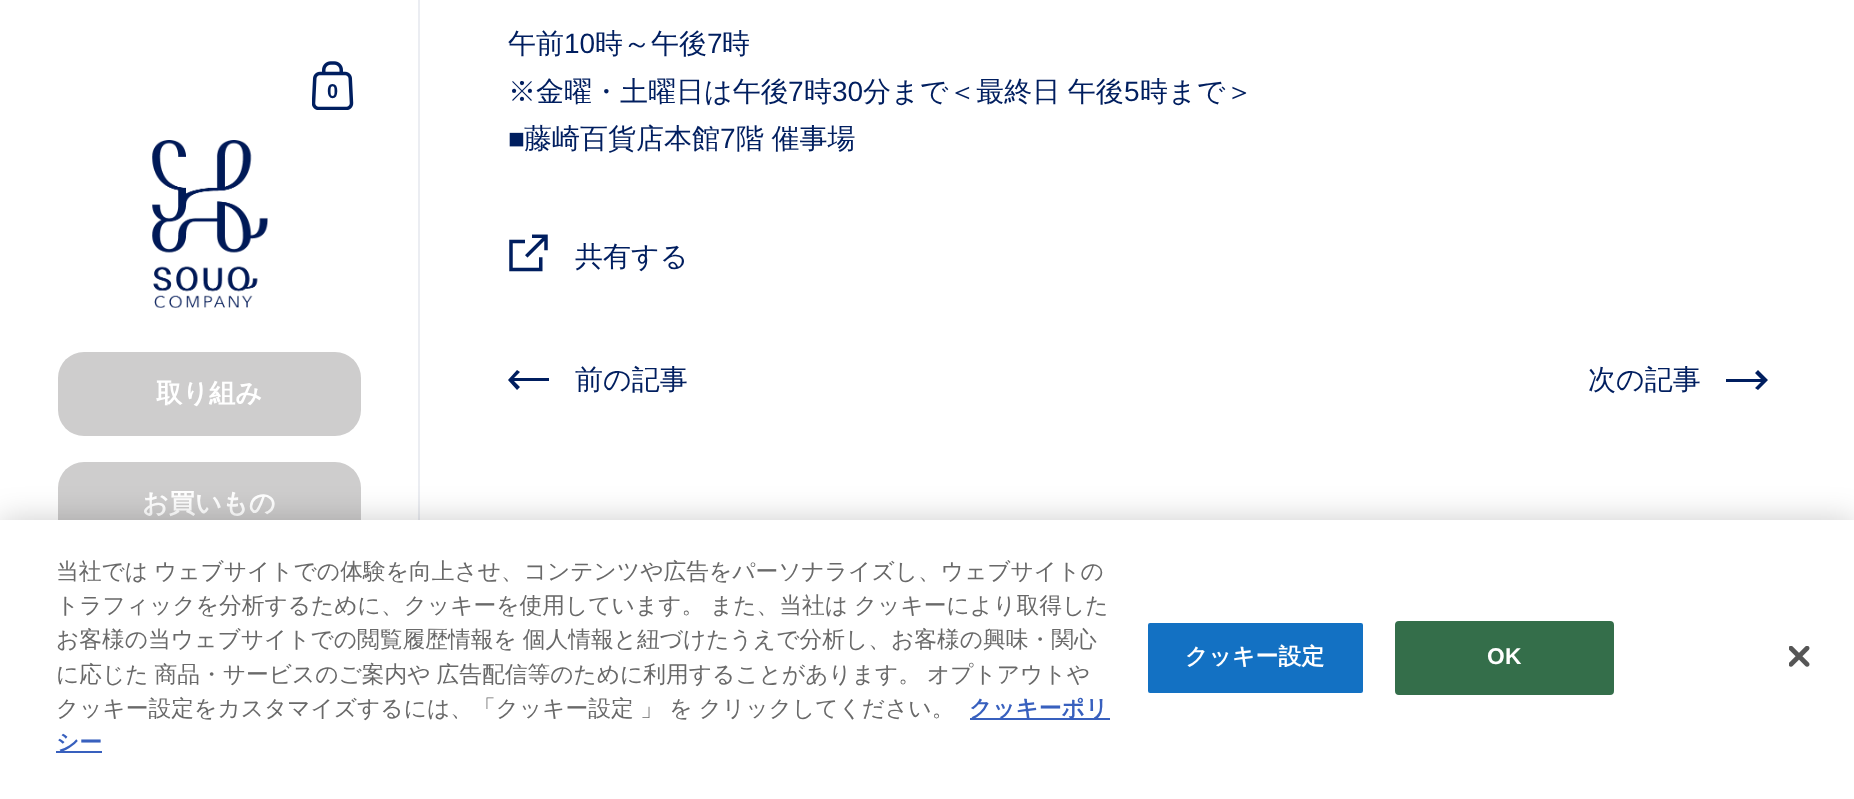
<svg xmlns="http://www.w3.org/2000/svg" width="1854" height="799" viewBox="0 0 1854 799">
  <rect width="100%" height="100%" fill="rgb(255,255,255)"/>
  <rect x="418" y="0" width="2" height="520" fill="rgb(235,237,242)"/>
  <image x="312" y="61" width="42" height="49" href="pic1.png"/>
  <text x="327" y="98" font-family="Liberation Sans" font-size="20" font-weight="bold" fill="rgb(0,30,95)">0</text>
  <image x="152" y="140" width="116" height="168" href="pic2.png"/>
  <rect x="58" y="352" width="303" height="84" rx="26" fill="rgb(206,205,205)"/>
  <text x="156" y="402" font-family="WenQuanYi Zen Hei" font-size="26.25" font-weight="bold" fill="rgb(255,255,255)">取り組み</text>
  <rect x="58" y="462" width="303" height="84" rx="26" fill="rgb(206,205,205)"/>
  <text x="142" y="512" font-family="WenQuanYi Zen Hei" font-size="26.25" font-weight="bold" fill="rgb(255,255,255)">お買いもの</text>
  <text x="508" y="53" font-family="WenQuanYi Zen Hei" font-size="28" font-weight="500" fill="rgb(0,30,95)">午前</text>
  <text x="564" y="53" font-family="Liberation Sans" font-size="28" fill="rgb(0,30,95)">10</text>
  <text x="595" y="53" font-family="WenQuanYi Zen Hei" font-size="28" font-weight="500" fill="rgb(0,30,95)">時～午後</text>
  <text x="707" y="53" font-family="Liberation Sans" font-size="28" fill="rgb(0,30,95)">7</text>
  <g font-family="WenQuanYi Zen Hei" font-size="28" font-weight="500" fill="rgb(0,30,95)">
    <text x="722" y="53">時</text>
    <text x="508" y="101">※金曜・土曜日は午後</text>
  </g>
  <text x="788" y="101" font-family="Liberation Sans" font-size="28" fill="rgb(0,30,95)">7</text>
  <text x="804" y="101" font-family="WenQuanYi Zen Hei" font-size="28" font-weight="500" fill="rgb(0,30,95)">時</text>
  <text x="832" y="101" font-family="Liberation Sans" font-size="28" fill="rgb(0,30,95)">30</text>
  <text x="863" y="101" word-spacing="-1" font-family="WenQuanYi Zen Hei" font-size="28" font-weight="500" fill="rgb(0,30,95)">分まで＜最終日 午後</text>
  <text x="1124" y="101" font-family="Liberation Sans" font-size="28" fill="rgb(0,30,95)">5</text>
  <text x="1140" y="101" font-family="WenQuanYi Zen Hei" font-size="28" font-weight="500" fill="rgb(0,30,95)">時まで＞</text>
  <text x="508" y="148" font-family="Liberation Sans" font-size="28" fill="rgb(0,30,95)">■</text>
  <text x="524" y="148" font-family="WenQuanYi Zen Hei" font-size="28" font-weight="500" fill="rgb(0,30,95)">藤崎百貨店本館</text>
  <text x="720" y="148" font-family="Liberation Sans" font-size="28" fill="rgb(0,30,95)">7</text>
  <text x="736" y="148" word-spacing="-1" font-family="WenQuanYi Zen Hei" font-size="28" font-weight="500" fill="rgb(0,30,95)">階 催事場</text>
  <image x="509" y="234" width="39" height="38" href="pic3.png"/>
  <text x="575" y="266" font-family="WenQuanYi Zen Hei" font-size="28" font-weight="500" fill="rgb(0,30,95)">共有する</text>
  <path d="M517 390L520 387L514 381H549V378H514L520 372L517 370L508 380Z" fill="rgb(0,30,95)"/>
  <g font-family="WenQuanYi Zen Hei" font-size="28" font-weight="500" fill="rgb(0,30,95)">
    <text x="575" y="389">前の記事</text>
    <text x="1588" y="389">次の記事</text>
  </g>
  <path d="M1758 370L1755 373L1761 379H1726V382H1761L1755 388L1758 390L1768 380Z" fill="rgb(0,30,95)"/>
  <rect x="0" y="520" width="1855" height="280" fill="rgba(0,0,0,0.2)" filter="blur(16px)"/>
  <rect x="0" y="520" width="1854" height="279" fill="rgb(255,255,255)"/>
  <g font-family="WenQuanYi Zen Hei" font-size="22.75" font-weight="500" fill="rgb(105,105,105)">
    <text>
      <tspan x="56" y="579" word-spacing="-1">当社では ウェブサイトでの体験を向上させ、コンテンツや広告をパーソナライズし、ウェブサイトの</tspan>
      <tspan x="56" y="613" word-spacing="-1">トラフィックを分析するために、クッキーを使用しています。 また、当社は クッキーにより取得した</tspan>
      <tspan x="56" y="647" word-spacing="-1">お客様の当ウェブサイトでの閲覧履歴情報を 個人情報と紐づけたうえで分析し、お客様の興味・関心</tspan>
      <tspan x="56" y="682" word-spacing="-1">に応じた 商品・サービスのご案内や 広告配信等のために利用することがあります。 オプトアウトや</tspan>
      <tspan x="56" y="716" word-spacing="-0.5">クッキー設定をカスタマイズするには、「クッキー設定 」 を クリックしてください。</tspan>
    </text>
  </g>
  <rect x="970" y="718" width="140" height="2" fill="rgb(56,96,190)"/>
  <text x="969" y="716" font-family="WenQuanYi Zen Hei" font-size="22.75" font-weight="bold" fill="rgb(56,96,190)">クッキーポリ</text>
  <rect x="56" y="751" width="46" height="2" fill="rgb(56,96,190)"/>
  <text x="56" y="750" font-family="WenQuanYi Zen Hei" font-size="22.75" font-weight="bold" fill="rgb(56,96,190)">シー</text>
  <rect x="1147" y="622" width="217" height="72" rx="3" fill="rgb(19,113,195)" stroke="rgb(255,255,255)" stroke-width="2"/>
  <text x="1185" y="664" font-family="WenQuanYi Zen Hei" font-size="22.75" font-weight="bold" letter-spacing="0.25" fill="rgb(255,255,255)">クッキー設定</text>
  <rect x="1396" y="622" width="217" height="72" rx="3" fill="rgb(52,110,74)" stroke="rgb(52,110,74)" stroke-width="2"/>
  <text x="1487" y="664" font-family="Liberation Sans" font-size="22.75" font-weight="bold" letter-spacing="0.25" fill="rgb(255,255,255)">OK</text>
  <image x="1789" y="646" width="21" height="21" href="pic4.png"/>
</svg>
